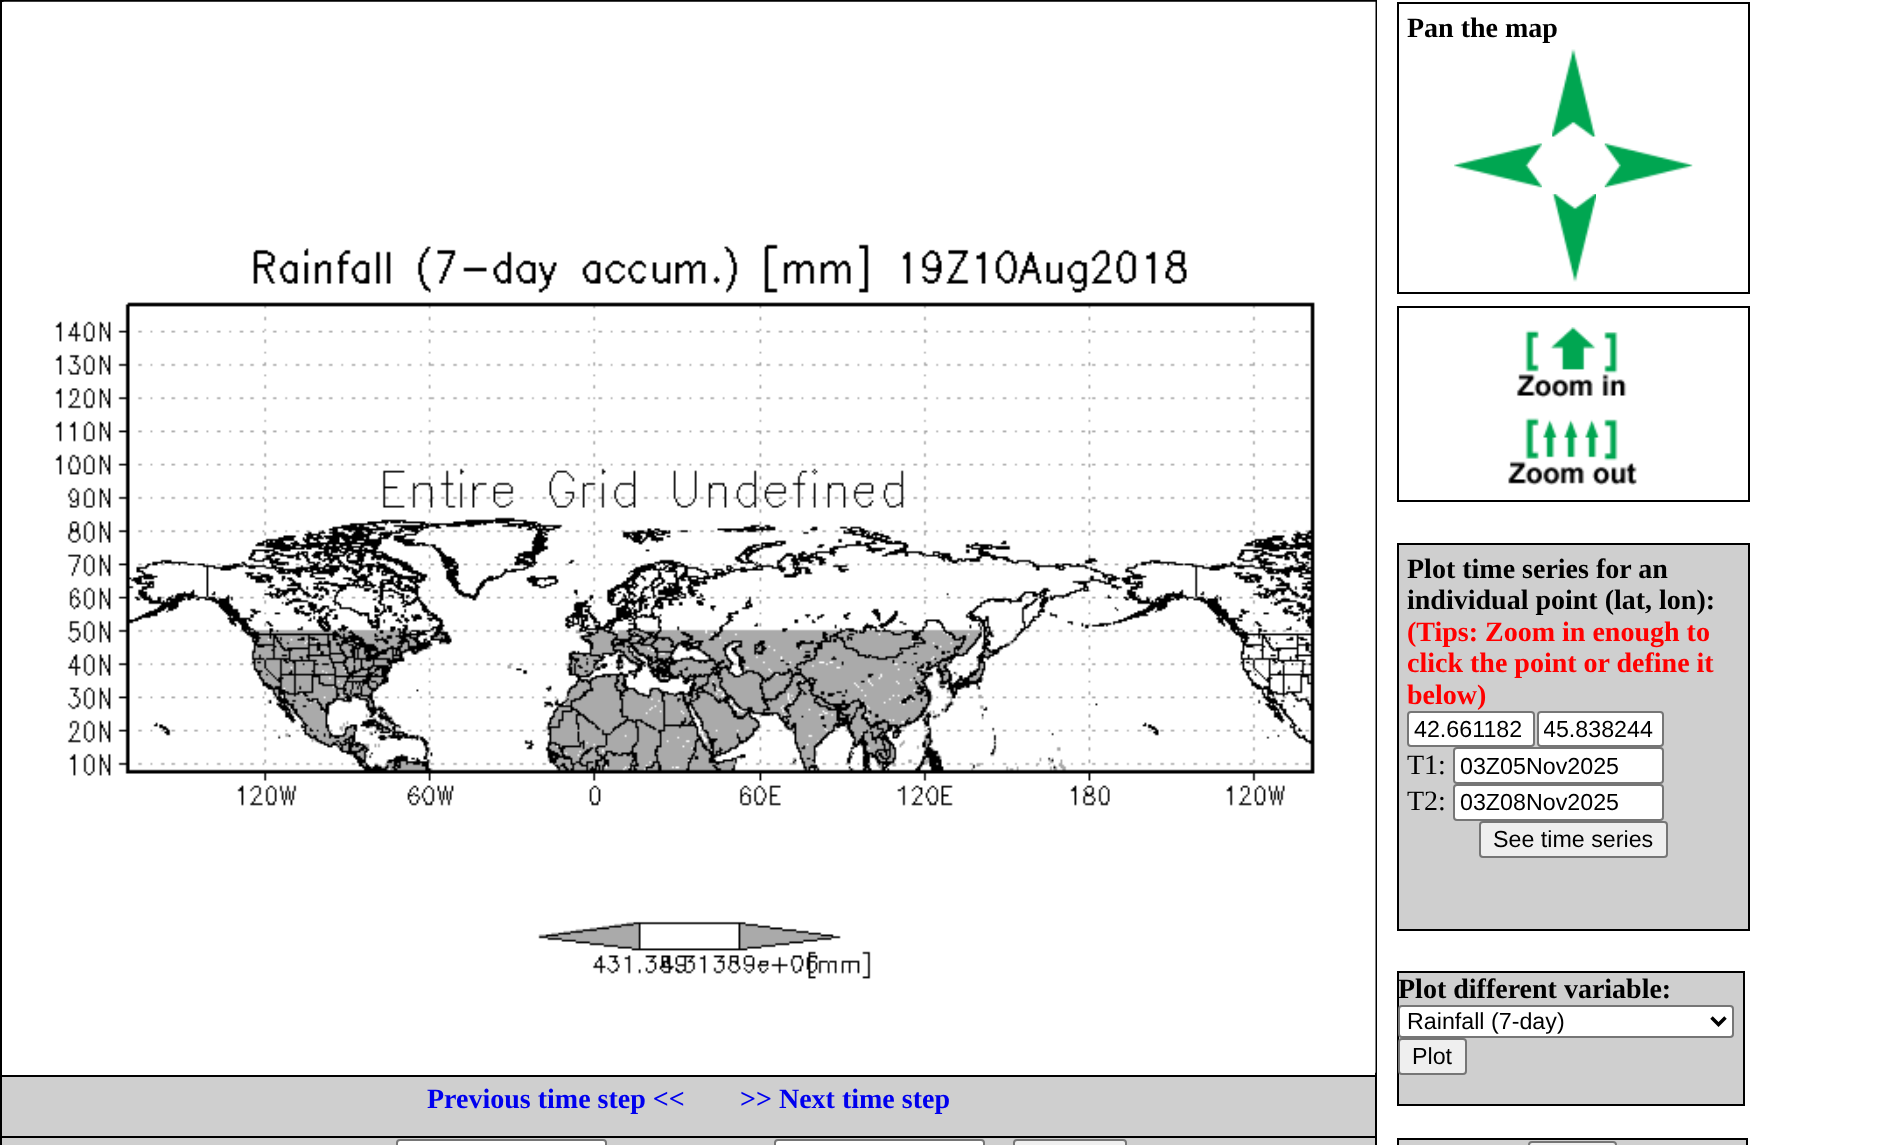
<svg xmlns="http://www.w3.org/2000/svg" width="1881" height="1145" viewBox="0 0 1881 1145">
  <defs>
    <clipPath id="clip1"><rect x="1544" y="716" width="113" height="26"/></clipPath>
  </defs>
  <rect width="100%" height="100%" fill="rgb(255,255,255)"/>
  <rect x="1" y="1" width="1375" height="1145" fill="none" stroke="rgb(0,0,0)" stroke-width="2"/>
  <image x="3" y="1" width="1373" height="1072" href="pic1.png"/>
  <rect x="1398" y="3" width="351" height="290" fill="none" stroke="rgb(0,0,0)" stroke-width="2"/>
  <text x="1407" y="37" font-family="Liberation Serif" font-size="28" font-weight="bold" fill="rgb(0,0,0)">Pan the map</text>
  <image x="1552" y="49" width="44" height="88" href="pic2.png"/>
  <image x="1454" y="143" width="88" height="45" href="pic3.png"/>
  <image x="1604" y="143" width="89" height="45" href="pic4.png"/>
  <image x="1552" y="194" width="44" height="88" href="pic5.png"/>
  <rect x="1398" y="307" width="351" height="194" fill="none" stroke="rgb(0,0,0)" stroke-width="2"/>
  <image x="1516" y="327" width="111" height="71" href="pic6.png"/>
  <image x="1508" y="417" width="129" height="68" href="pic7.png"/>
  <rect x="1398" y="544" width="351" height="386" fill="rgb(207,207,207)" stroke="rgb(0,0,0)" stroke-width="2"/>
  <g font-family="Liberation Serif" font-size="28" font-weight="bold" fill="rgb(0,0,0)">
    <text>
      <tspan x="1407" y="578">Plot time series for an</tspan>
      <tspan x="1407" y="609">individual point (lat, lon):</tspan>
    </text>
  </g>
  <g font-family="Liberation Serif" font-size="28" font-weight="bold" fill="rgb(255,0,0)">
    <text>
      <tspan x="1407" y="641">(Tips: Zoom in enough to</tspan>
      <tspan x="1407" y="672">click the point or define it</tspan>
      <tspan x="1407" y="704">below)</tspan>
    </text>
  </g>
  <rect x="1408" y="712" width="126" height="34" rx="3" fill="rgb(255,255,255)" stroke="rgb(118,118,118)" stroke-width="2"/>
  <text x="1414" y="737" font-family="Liberation Sans" font-size="23.25" fill="rgb(0,0,0)">42.661182</text>
  <rect x="1538" y="712" width="125" height="34" rx="3" fill="rgb(255,255,255)" stroke="rgb(118,118,118)" stroke-width="2"/>
  <g clip-path="url(#clip1)">
    <text x="1543" y="737" font-family="Liberation Sans" font-size="23.25" fill="rgb(0,0,0)">45.838244</text>
  </g>
  <text x="1407" y="774" font-family="Liberation Serif" font-size="28" fill="rgb(0,0,0)">T1:</text>
  <rect x="1454" y="748" width="209" height="35" rx="3" fill="rgb(255,255,255)" stroke="rgb(118,118,118)" stroke-width="2"/>
  <text x="1460" y="774" font-family="Liberation Sans" font-size="23.25" fill="rgb(0,0,0)">03Z05Nov2025</text>
  <text x="1407" y="810" font-family="Liberation Serif" font-size="28" fill="rgb(0,0,0)">T2:</text>
  <rect x="1454" y="785" width="209" height="35" rx="3" fill="rgb(255,255,255)" stroke="rgb(118,118,118)" stroke-width="2"/>
  <text x="1460" y="810" font-family="Liberation Sans" font-size="23.25" fill="rgb(0,0,0)">03Z08Nov2025</text>
  <rect x="1480" y="822" width="187" height="35" rx="3" fill="rgb(239,239,239)" stroke="rgb(118,118,118)" stroke-width="2"/>
  <text x="1493" y="847" font-family="Liberation Sans" font-size="23.25" fill="rgb(0,0,0)">See time series</text>
  <rect x="1398" y="972" width="346" height="133" fill="rgb(207,207,207)" stroke="rgb(0,0,0)" stroke-width="2"/>
  <text x="1398" y="998" font-family="Liberation Serif" font-size="28" font-weight="bold" fill="rgb(0,0,0)">Plot different variable:</text>
  <rect x="1399" y="1006" width="334" height="31" rx="3" fill="rgb(255,255,255)" stroke="rgb(118,118,118)" stroke-width="2"/>
  <path d="M1711.5 1017.5L1718.5 1024.5L1725.5 1017.5" fill="none" stroke="rgb(0,0,0)" stroke-width="3.5"/>
  <text x="1407" y="1029" font-family="Liberation Sans" font-size="23.25" fill="rgb(0,0,0)">Rainfall (7-day)</text>
  <rect x="1399" y="1039" width="67" height="35" rx="3" fill="rgb(239,239,239)" stroke="rgb(118,118,118)" stroke-width="2"/>
  <text x="1412" y="1064" font-family="Liberation Sans" font-size="23.25" fill="rgb(0,0,0)">Plot</text>
  <rect x="1" y="1076" width="1375" height="61" fill="rgb(207,207,207)" stroke="rgb(0,0,0)" stroke-width="2"/>
  <g font-family="Liberation Serif" font-size="28" font-weight="bold" fill="rgb(0,0,238)">
    <text x="427" y="1108">Previous time step &lt;&lt;</text>
    <text x="740" y="1108">&gt;&gt; Next time step</text>
  </g>
  <rect x="2" y="1138" width="1373" height="7" fill="rgb(207,207,207)"/>
  <rect x="397" y="1140" width="209" height="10" rx="3" fill="rgb(255,255,255)" stroke="rgb(118,118,118)" stroke-width="2"/>
  <rect x="775" y="1140" width="209" height="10" rx="3" fill="rgb(255,255,255)" stroke="rgb(118,118,118)" stroke-width="2"/>
  <rect x="1014" y="1140" width="112" height="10" rx="3" fill="rgb(239,239,239)" stroke="rgb(118,118,118)" stroke-width="2"/>
  <rect x="1398" y="1139" width="349" height="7" fill="rgb(207,207,207)" stroke="rgb(0,0,0)" stroke-width="2"/>
  <rect x="1529" y="1142" width="87" height="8" rx="3" fill="rgb(239,239,239)" stroke="rgb(118,118,118)" stroke-width="2"/>
</svg>
